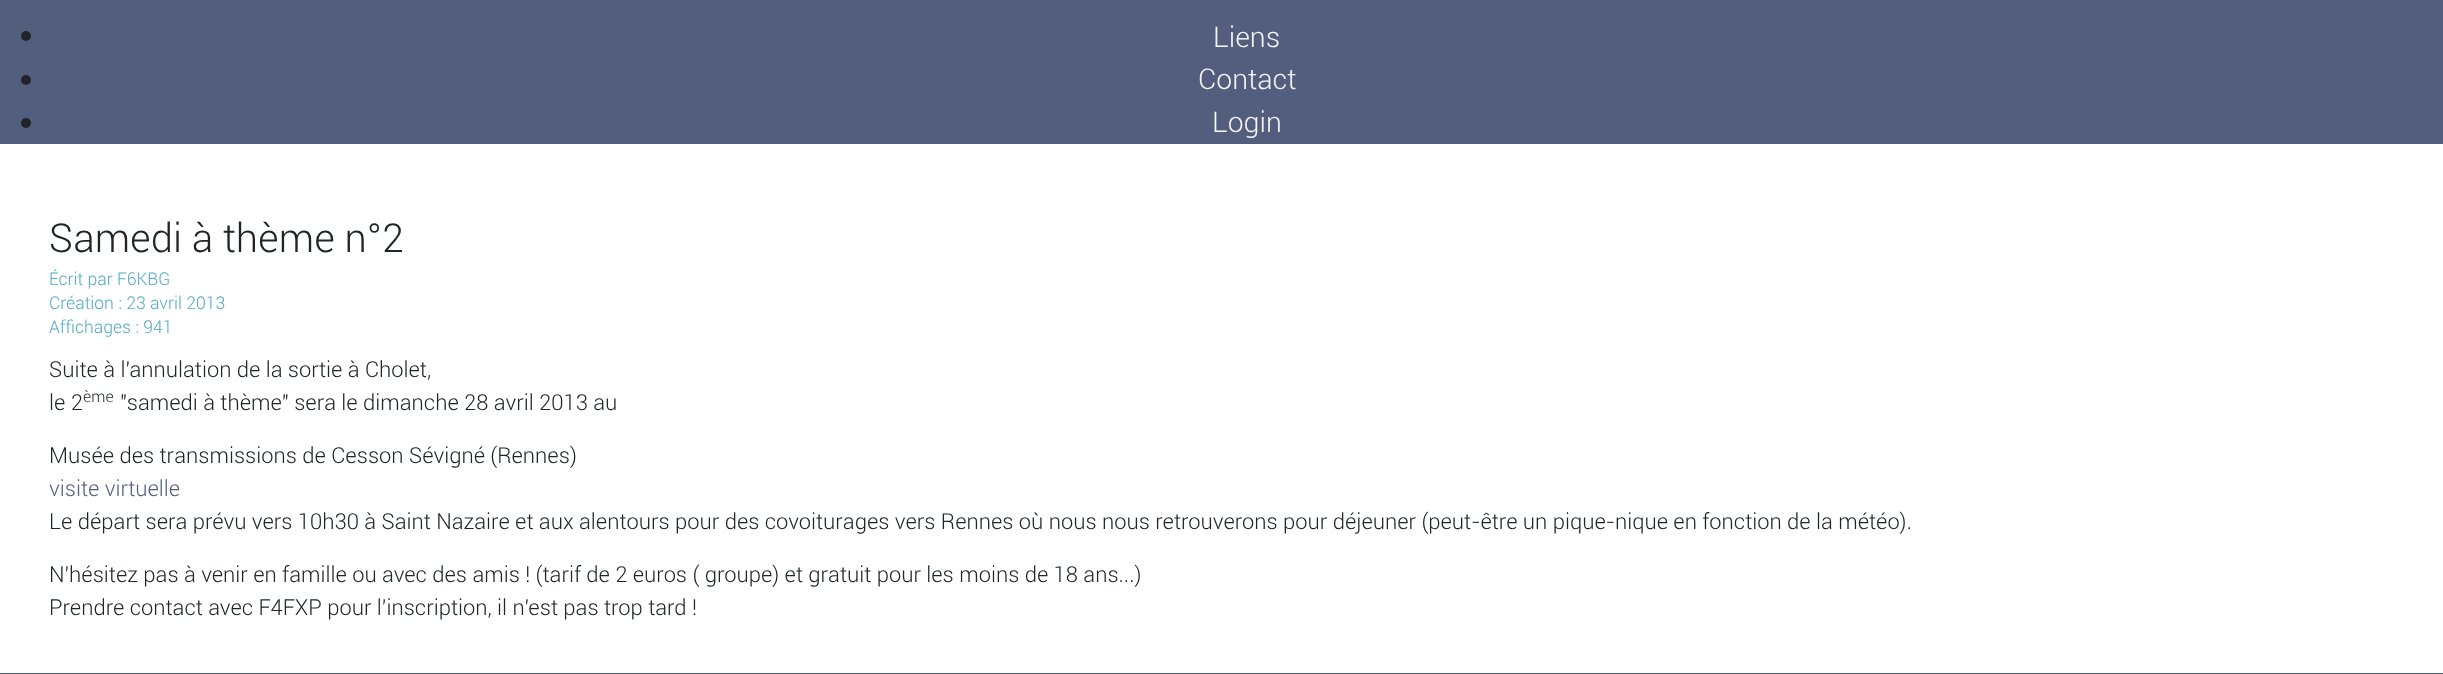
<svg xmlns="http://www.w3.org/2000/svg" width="2443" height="674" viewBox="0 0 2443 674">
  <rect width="100%" height="100%" fill="rgb(255,255,255)"/>
  <rect x="0" y="0" width="2443" height="144" fill="rgb(83,94,126)"/>
  <circle cx="26" cy="36" r="5" fill="rgb(33,37,41)"/>
  <text x="1213" y="47" font-family="Roboto" font-size="28.5" font-weight="300" fill="rgb(245,245,245)">Liens</text>
  <circle cx="26" cy="80" r="5" fill="rgb(33,37,41)"/>
  <text x="1198" y="89" font-family="Roboto" font-size="28.5" font-weight="300" fill="rgb(245,245,245)">Contact</text>
  <circle cx="26" cy="123" r="5" fill="rgb(33,37,41)"/>
  <text x="1212" y="132" font-family="Roboto" font-size="28.5" font-weight="300" fill="rgb(245,245,245)">Login</text>
  <text x="49" y="252" font-family="Roboto" font-size="40" font-weight="300" fill="rgb(33,37,41)">Samedi à thème n°2</text>
  <g font-family="Roboto" font-size="17.6" font-weight="300" fill="rgb(84,171,199)">
    <text>
      <tspan x="49" y="285">Écrit par F6KBG</tspan>
      <tspan x="49" y="309">Création : 23 avril 2013</tspan>
      <tspan x="49" y="333">Affichages : 941</tspan>
    </text>
  </g>
  <g font-family="Roboto" font-size="22" font-weight="300" fill="rgb(33,37,41)">
    <text>
      <tspan x="49" y="377">Suite à l'annulation de la sortie à Cholet,</tspan>
      <tspan x="49" y="410">le 2</tspan>
    </text>
  </g>
  <text x="83" y="402" font-family="Roboto" font-size="16" font-weight="300" fill="rgb(33,37,41)">ème</text>
  <g font-family="Roboto" font-size="22" font-weight="300" fill="rgb(33,37,41)">
    <text x="120" y="410">"samedi à thème" sera le dimanche 28 avril 2013 au</text>
    <text x="49" y="463">Musée des transmissions de Cesson Sévigné (Rennes)</text>
  </g>
  <text x="49" y="496" font-family="Roboto" font-size="22" font-weight="300" fill="rgb(83,94,126)">visite virtuelle</text>
  <g font-family="Roboto" font-size="22" font-weight="300" fill="rgb(33,37,41)">
    <text x="49" y="529">Le départ sera prévu vers 10h30 à Saint Nazaire et aux alentours pour des covoiturages vers Rennes où nous nous retrouverons pour déjeuner (peut-être un pique-nique en fonction de la météo).</text>
    <text>
      <tspan x="49" y="582">N'hésitez pas à venir en famille ou avec des amis ! (tarif de 2 euros ( groupe) et gratuit pour les moins de 18 ans...)</tspan>
      <tspan x="49" y="615">Prendre contact avec F4FXP pour l'inscription, il n'est pas trop tard !</tspan>
    </text>
  </g>
  <rect x="0" y="673" width="2443" height="1" fill="rgb(83,94,126)"/>
</svg>
